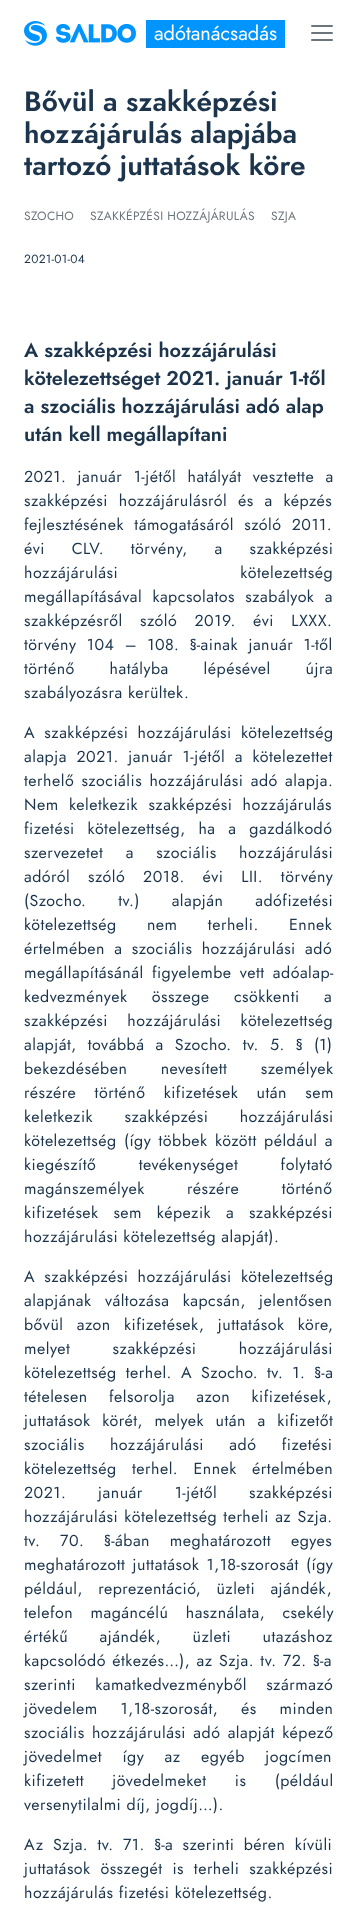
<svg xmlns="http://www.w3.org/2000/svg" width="357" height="1921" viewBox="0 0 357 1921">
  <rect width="100%" height="100%" fill="rgb(255,255,255)"/>
  <image x="24" y="21" width="112" height="25" href="pic1.png"/>
  <rect x="146" y="20" width="139" height="28" fill="rgb(0,148,255)"/>
  <text x="154" y="40" font-family="Jost" font-size="20" fill="rgb(255,255,255)">adótanácsadás</text>
  <rect x="311" y="25" width="22" height="2" rx="1" fill="rgb(108,117,125)"/>
  <rect x="311" y="32" width="22" height="2" rx="1" fill="rgb(108,117,125)"/>
  <rect x="311" y="39" width="22" height="2" rx="1" fill="rgb(108,117,125)"/>
  <g font-family="Jost" font-size="28" font-weight="600" fill="rgb(29,53,76)">
    <text>
      <tspan x="24" y="111">Bővül a szakképzési</tspan>
      <tspan x="24" y="143">hozzájárulás alapjába</tspan>
      <tspan x="24" y="175">tartozó juttatások köre</tspan>
    </text>
  </g>
  <g font-family="Jost" font-size="12" letter-spacing="0.3" fill="rgb(108,117,125)">
    <text x="24" y="220">SZOCHO</text>
    <text x="90" y="220">SZAKKÉPZÉSI HOZZÁJÁRULÁS</text>
    <text x="271" y="220">SZJA</text>
  </g>
  <text x="24" y="263" font-family="Jost" font-size="12" letter-spacing="0.3" fill="rgb(29,53,76)">2021-01-04</text>
  <g font-family="Jost" font-size="20" font-weight="600" fill="rgb(29,53,76)">
    <text>
      <tspan x="24" y="357">A szakképzési hozzájárulási</tspan>
      <tspan x="24" y="385">kötelezettséget 2021. január 1-től</tspan>
      <tspan x="24" y="413">a szociális hozzájárulási adó alap</tspan>
      <tspan x="24" y="441">után kell megállapítani</tspan>
    </text>
  </g>
  <g font-family="Jost" font-size="16" letter-spacing="0.5" fill="rgb(29,53,76)">
    <text>
      <tspan x="24" y="482" word-spacing="6">2021. január 1-jétől hatályát vesztette a</tspan>
      <tspan x="24" y="506" word-spacing="5.5">szakképzési hozzájárulásról és a képzés</tspan>
      <tspan x="24" y="530" word-spacing="5">fejlesztésének támogatásáról szóló 2011.</tspan>
      <tspan x="24" y="554" word-spacing="21.5">évi CLV. törvény, a szakképzési</tspan>
      <tspan x="24" y="578" word-spacing="117">hozzájárulási kötelezettség</tspan>
      <tspan x="24" y="602" word-spacing="5">megállapításával kapcsolatos szabályok a</tspan>
      <tspan x="24" y="626" word-spacing="12">szakképzésről szóló 2019. évi LXXX.</tspan>
      <tspan x="24" y="650" word-spacing="5">törvény 104 – 108. §-ainak január 1-től</tspan>
      <tspan x="24" y="674" word-spacing="29.5">történő hatályba lépésével újra</tspan>
      <tspan x="24" y="698">szabályozásra kerültek.</tspan>
    </text>
    <text>
      <tspan x="24" y="738" word-spacing="4">A szakképzési hozzájárulási kötelezettség</tspan>
      <tspan x="24" y="762" word-spacing="4.25">alapja 2021. január 1-jétől a kötelezettet</tspan>
      <tspan x="24" y="786" word-spacing="2">terhelő szociális hozzájárulási adó alapja.</tspan>
      <tspan x="24" y="810" word-spacing="5">Nem keletkezik szakképzési hozzájárulás</tspan>
      <tspan x="24" y="834" word-spacing="7.5">fizetési kötelezettség, ha a gazdálkodó</tspan>
      <tspan x="24" y="858" word-spacing="17">szervezetet a szociális hozzájárulási</tspan>
      <tspan x="24" y="882" word-spacing="12.5">adóról szóló 2018. évi LII. törvény</tspan>
      <tspan x="24" y="906" word-spacing="26.5">(Szocho. tv.) alapján adófizetési</tspan>
      <tspan x="24" y="930" word-spacing="25">kötelezettség nem terheli. Ennek</tspan>
      <tspan x="24" y="954" word-spacing="4">értelmében a szociális hozzájárulási adó</tspan>
      <tspan x="24" y="978" word-spacing="3">megállapításánál figyelembe vett adóalap-</tspan>
      <tspan x="24" y="1002" word-spacing="19">kedvezmények összege csökkenti a</tspan>
      <tspan x="24" y="1026" word-spacing="14">szakképzési hozzájárulási kötelezettség</tspan>
      <tspan x="24" y="1050" word-spacing="5.75">alapját, továbbá a Szocho. tv. 5. § (1)</tspan>
      <tspan x="24" y="1074" word-spacing="28">bekezdésében nevesített személyek</tspan>
      <tspan x="24" y="1098" word-spacing="13">részére történő kifizetések után sem</tspan>
      <tspan x="24" y="1122" word-spacing="26">keletkezik szakképzési hozzájárulási</tspan>
      <tspan x="24" y="1146" word-spacing="2">kötelezettség (így többek között például a</tspan>
      <tspan x="24" y="1170" word-spacing="37">kiegészítő tevékenységet folytató</tspan>
      <tspan x="24" y="1194" word-spacing="37">magánszemélyek részére történő</tspan>
      <tspan x="24" y="1218" word-spacing="9.5">kifizetések sem képezik a szakképzési</tspan>
      <tspan x="24" y="1242">hozzájárulási kötelezettség alapját).</tspan>
    </text>
    <text>
      <tspan x="24" y="1282" word-spacing="4">A szakképzési hozzájárulási kötelezettség</tspan>
      <tspan x="24" y="1306" word-spacing="8">alapjának változása kapcsán, jelentősen</tspan>
      <tspan x="24" y="1330" word-spacing="8">bővül azon kifizetések, juttatások köre,</tspan>
      <tspan x="24" y="1354" word-spacing="37">melyet szakképzési hozzájárulási</tspan>
      <tspan x="24" y="1378" word-spacing="3.75">kötelezettség terhel. A Szocho. tv. 1. §-a</tspan>
      <tspan x="24" y="1402" word-spacing="16">tételesen felsorolja azon kifizetések,</tspan>
      <tspan x="24" y="1426" word-spacing="6.25">juttatások körét, melyek után a kifizetőt</tspan>
      <tspan x="24" y="1450" word-spacing="20">szociális hozzájárulási adó fizetési</tspan>
      <tspan x="24" y="1474" word-spacing="10">kötelezettség terhel. Ennek értelmében</tspan>
      <tspan x="24" y="1498" word-spacing="26.5">2021. január 1-jétől szakképzési</tspan>
      <tspan x="24" y="1522" word-spacing="1">hozzájárulási kötelezettség terheli az Szja.</tspan>
      <tspan x="24" y="1546" word-spacing="14.5">tv. 70. §-ában meghatározott egyes</tspan>
      <tspan x="24" y="1570" word-spacing="2">meghatározott juttatások 1,18-szorosát (így</tspan>
      <tspan x="24" y="1594" word-spacing="10">például, reprezentáció, üzleti ajándék,</tspan>
      <tspan x="24" y="1618" word-spacing="12">telefon magáncélú használata, csekély</tspan>
      <tspan x="24" y="1642" word-spacing="26">értékű ajándék, üzleti utazáshoz</tspan>
      <tspan x="24" y="1666" word-spacing="1">kapcsolódó étkezés…), az Szja. tv. 72. §-a</tspan>
      <tspan x="24" y="1690" word-spacing="14">szerinti kamatkedvezményből származó</tspan>
      <tspan x="24" y="1714" word-spacing="17.5">jövedelem 1,18-szorosát, és minden</tspan>
      <tspan x="24" y="1738" word-spacing="2">szociális hozzájárulási adó alapját képező</tspan>
      <tspan x="24" y="1762" word-spacing="15">jövedelmet így az egyéb jogcímen</tspan>
      <tspan x="24" y="1786" word-spacing="23">kifizetett jövedelmeket is (például</tspan>
      <tspan x="24" y="1810">versenytilalmi díj, jogdíj…).</tspan>
    </text>
    <text>
      <tspan x="24" y="1850" word-spacing="4">Az Szja. tv. 71. §-a szerinti béren kívüli</tspan>
      <tspan x="24" y="1874" word-spacing="4.5">juttatások összegét is terheli szakképzési</tspan>
      <tspan x="24" y="1898">hozzájárulás fizetési kötelezettség.</tspan>
    </text>
  </g>
</svg>
